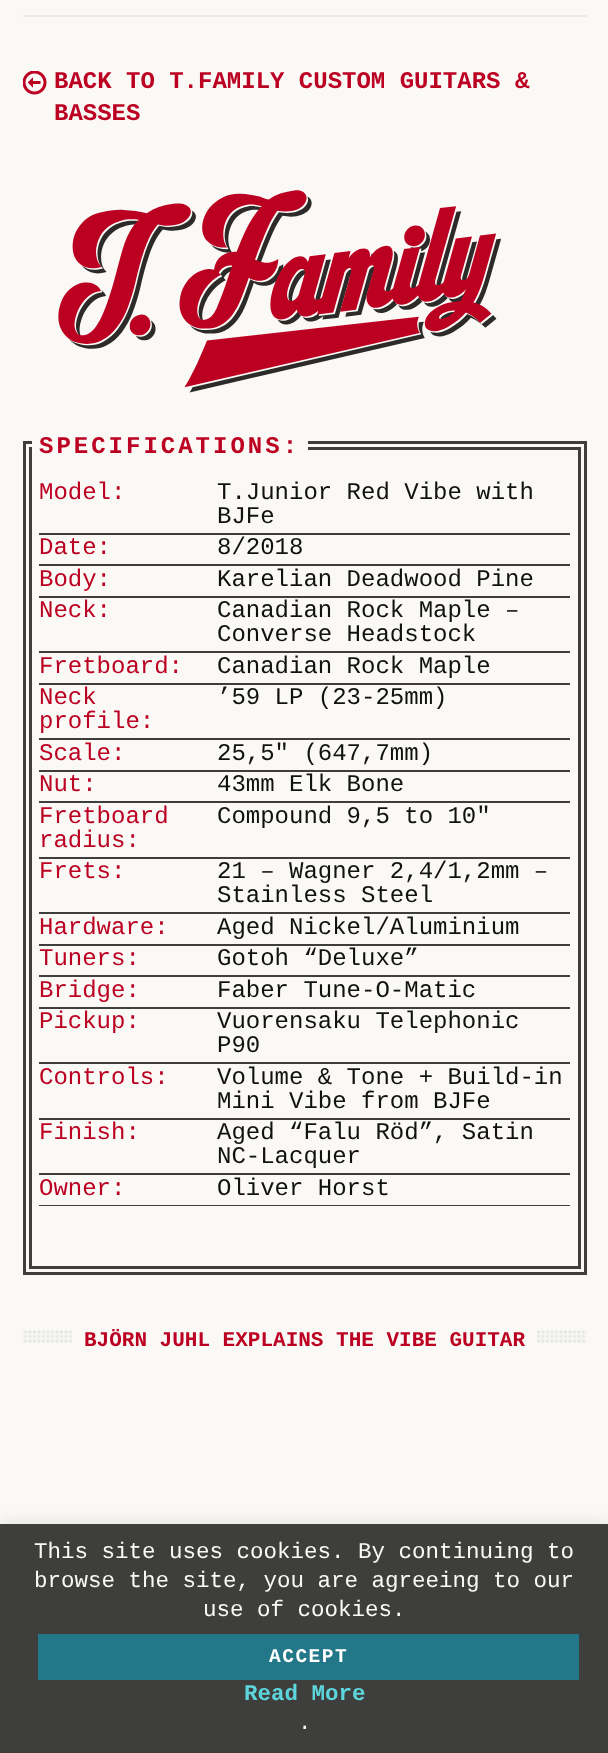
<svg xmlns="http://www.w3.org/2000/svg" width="608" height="1753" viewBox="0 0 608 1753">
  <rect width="100%" height="100%" fill="rgb(250,249,245)"/>
  <rect x="23" y="15" width="564" height="2" fill="rgb(235,235,235)"/>
  <image x="23" y="71" width="24" height="24" href="pic1.png"/>
  <g font-family="Liberation Mono" font-size="24" font-weight="bold" fill="rgb(187,0,34)">
    <text>
      <tspan x="54" y="88">BACK TO T.FAMILY CUSTOM GUITARS &amp;</tspan>
      <tspan x="54" y="120">BASSES</tspan>
    </text>
  </g>
  <image x="58" y="190" width="444" height="203" href="pic2.png"/>
  <rect x="24.5" y="442.5" width="561" height="831" fill="none" stroke="rgb(63,62,60)" stroke-width="3"/>
  <rect x="30.5" y="448.5" width="549" height="819" fill="none" stroke="rgb(63,62,60)" stroke-width="3"/>
  <rect x="32" y="441" width="276" height="9" fill="rgb(250,249,245)"/>
  <text x="39" y="453" font-family="Liberation Mono" font-size="24" font-weight="bold" letter-spacing="3" fill="rgb(187,0,34)">SPECIFICATIONS:</text>
  <text x="39" y="499" font-family="Liberation Mono" font-size="24" fill="rgb(187,0,34)">Model:</text>
  <rect x="39" y="533" width="531" height="2" fill="rgb(63,62,60)"/>
  <g font-family="Liberation Mono" font-size="24" fill="rgb(17,17,17)">
    <text>
      <tspan x="217" y="499">T.Junior Red Vibe with</tspan>
      <tspan x="217" y="523">BJFe</tspan>
    </text>
  </g>
  <text x="39" y="554" font-family="Liberation Mono" font-size="24" fill="rgb(187,0,34)">Date:</text>
  <rect x="39" y="564" width="531" height="2" fill="rgb(63,62,60)"/>
  <text x="217" y="554" font-family="Liberation Mono" font-size="24" fill="rgb(17,17,17)">8/2018</text>
  <text x="39" y="586" font-family="Liberation Mono" font-size="24" fill="rgb(187,0,34)">Body:</text>
  <rect x="39" y="596" width="531" height="2" fill="rgb(63,62,60)"/>
  <text x="217" y="586" font-family="Liberation Mono" font-size="24" fill="rgb(17,17,17)">Karelian Deadwood Pine</text>
  <text x="39" y="617" font-family="Liberation Mono" font-size="24" fill="rgb(187,0,34)">Neck:</text>
  <rect x="39" y="651" width="531" height="2" fill="rgb(63,62,60)"/>
  <g font-family="Liberation Mono" font-size="24" fill="rgb(17,17,17)">
    <text>
      <tspan x="217" y="617">Canadian Rock Maple –</tspan>
      <tspan x="217" y="641">Converse Headstock</tspan>
    </text>
  </g>
  <text x="39" y="673" font-family="Liberation Mono" font-size="24" fill="rgb(187,0,34)">Fretboard:</text>
  <rect x="39" y="683" width="531" height="2" fill="rgb(63,62,60)"/>
  <text x="217" y="673" font-family="Liberation Mono" font-size="24" fill="rgb(17,17,17)">Canadian Rock Maple</text>
  <g font-family="Liberation Mono" font-size="24" fill="rgb(187,0,34)">
    <text>
      <tspan x="39" y="704">Neck</tspan>
      <tspan x="39" y="728">profile:</tspan>
    </text>
  </g>
  <rect x="39" y="738" width="531" height="2" fill="rgb(63,62,60)"/>
  <text x="217" y="704" font-family="Liberation Mono" font-size="24" fill="rgb(17,17,17)">’59 LP (23-25mm)</text>
  <text x="39" y="760" font-family="Liberation Mono" font-size="24" fill="rgb(187,0,34)">Scale:</text>
  <rect x="39" y="770" width="531" height="2" fill="rgb(63,62,60)"/>
  <text x="217" y="760" font-family="Liberation Mono" font-size="24" fill="rgb(17,17,17)">25,5″ (647,7mm)</text>
  <text x="39" y="791" font-family="Liberation Mono" font-size="24" fill="rgb(187,0,34)">Nut:</text>
  <rect x="39" y="801" width="531" height="2" fill="rgb(63,62,60)"/>
  <text x="217" y="791" font-family="Liberation Mono" font-size="24" fill="rgb(17,17,17)">43mm Elk Bone</text>
  <g font-family="Liberation Mono" font-size="24" fill="rgb(187,0,34)">
    <text>
      <tspan x="39" y="823">Fretboard</tspan>
      <tspan x="39" y="847">radius:</tspan>
    </text>
  </g>
  <rect x="39" y="857" width="531" height="2" fill="rgb(63,62,60)"/>
  <text x="217" y="823" font-family="Liberation Mono" font-size="24" fill="rgb(17,17,17)">Compound 9,5 to 10″</text>
  <text x="39" y="878" font-family="Liberation Mono" font-size="24" fill="rgb(187,0,34)">Frets:</text>
  <rect x="39" y="912" width="531" height="2" fill="rgb(63,62,60)"/>
  <g font-family="Liberation Mono" font-size="24" fill="rgb(17,17,17)">
    <text>
      <tspan x="217" y="878">21 – Wagner 2,4/1,2mm –</tspan>
      <tspan x="217" y="902">Stainless Steel</tspan>
    </text>
  </g>
  <text x="39" y="934" font-family="Liberation Mono" font-size="24" fill="rgb(187,0,34)">Hardware:</text>
  <rect x="39" y="944" width="531" height="2" fill="rgb(63,62,60)"/>
  <text x="217" y="934" font-family="Liberation Mono" font-size="24" fill="rgb(17,17,17)">Aged Nickel/Aluminium</text>
  <text x="39" y="965" font-family="Liberation Mono" font-size="24" fill="rgb(187,0,34)">Tuners:</text>
  <rect x="39" y="975" width="531" height="2" fill="rgb(63,62,60)"/>
  <text x="217" y="965" font-family="Liberation Mono" font-size="24" fill="rgb(17,17,17)">Gotoh “Deluxe”</text>
  <text x="39" y="997" font-family="Liberation Mono" font-size="24" fill="rgb(187,0,34)">Bridge:</text>
  <rect x="39" y="1007" width="531" height="2" fill="rgb(63,62,60)"/>
  <text x="217" y="997" font-family="Liberation Mono" font-size="24" fill="rgb(17,17,17)">Faber Tune-O-Matic</text>
  <text x="39" y="1028" font-family="Liberation Mono" font-size="24" fill="rgb(187,0,34)">Pickup:</text>
  <rect x="39" y="1062" width="531" height="2" fill="rgb(63,62,60)"/>
  <g font-family="Liberation Mono" font-size="24" fill="rgb(17,17,17)">
    <text>
      <tspan x="217" y="1028">Vuorensaku Telephonic</tspan>
      <tspan x="217" y="1052">P90</tspan>
    </text>
  </g>
  <text x="39" y="1084" font-family="Liberation Mono" font-size="24" fill="rgb(187,0,34)">Controls:</text>
  <rect x="39" y="1118" width="531" height="2" fill="rgb(63,62,60)"/>
  <g font-family="Liberation Mono" font-size="24" fill="rgb(17,17,17)">
    <text>
      <tspan x="217" y="1084">Volume &amp; Tone + Build-in</tspan>
      <tspan x="217" y="1108">Mini Vibe from BJFe</tspan>
    </text>
  </g>
  <text x="39" y="1139" font-family="Liberation Mono" font-size="24" fill="rgb(187,0,34)">Finish:</text>
  <rect x="39" y="1173" width="531" height="2" fill="rgb(63,62,60)"/>
  <g font-family="Liberation Mono" font-size="24" fill="rgb(17,17,17)">
    <text>
      <tspan x="217" y="1139">Aged “Falu Röd”, Satin</tspan>
      <tspan x="217" y="1163">NC-Lacquer</tspan>
    </text>
  </g>
  <text x="39" y="1195" font-family="Liberation Mono" font-size="24" fill="rgb(187,0,34)">Owner:</text>
  <rect x="39" y="1205" width="531" height="1" fill="rgb(63,62,60)"/>
  <text x="217" y="1195" font-family="Liberation Mono" font-size="24" fill="rgb(17,17,17)">Oliver Horst</text>
  <image x="22" y="1330" width="565" height="13" href="pic3.png"/>
  <rect x="72" y="1330" width="465" height="13" fill="rgb(250,249,245)"/>
  <text x="84" y="1346" font-family="Liberation Mono" font-size="21" font-weight="bold" fill="rgb(187,0,34)">BJÖRN JUHL EXPLAINS THE VIBE GUITAR</text>
  <rect x="0" y="1523" width="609" height="229" fill="rgba(172,171,171,0.3)" filter="blur(7.5px)"/>
  <rect x="0" y="1524" width="608" height="229" fill="rgb(62,62,60)"/>
  <g font-family="Liberation Mono" font-size="22.5" fill="rgb(250,249,245)">
    <text>
      <tspan x="34" y="1558">This site uses cookies. By continuing to</tspan>
      <tspan x="34" y="1587">browse the site, you are agreeing to our</tspan>
    </text>
    <text x="203" y="1616">use of cookies.</text>
  </g>
  <rect x="38" y="1634" width="541" height="46" fill="rgb(34,119,136)"/>
  <text x="269" y="1662" font-family="Liberation Mono" font-size="19.5" font-weight="bold" letter-spacing="1.5" fill="rgb(255,255,255)">ACCEPT</text>
  <text x="244" y="1700" font-family="Liberation Mono" font-size="22.5" font-weight="bold" fill="rgb(93,213,221)">Read More</text>
  <text x="298" y="1729" font-family="Liberation Mono" font-size="22.5" fill="rgb(250,249,245)">.</text>
</svg>
